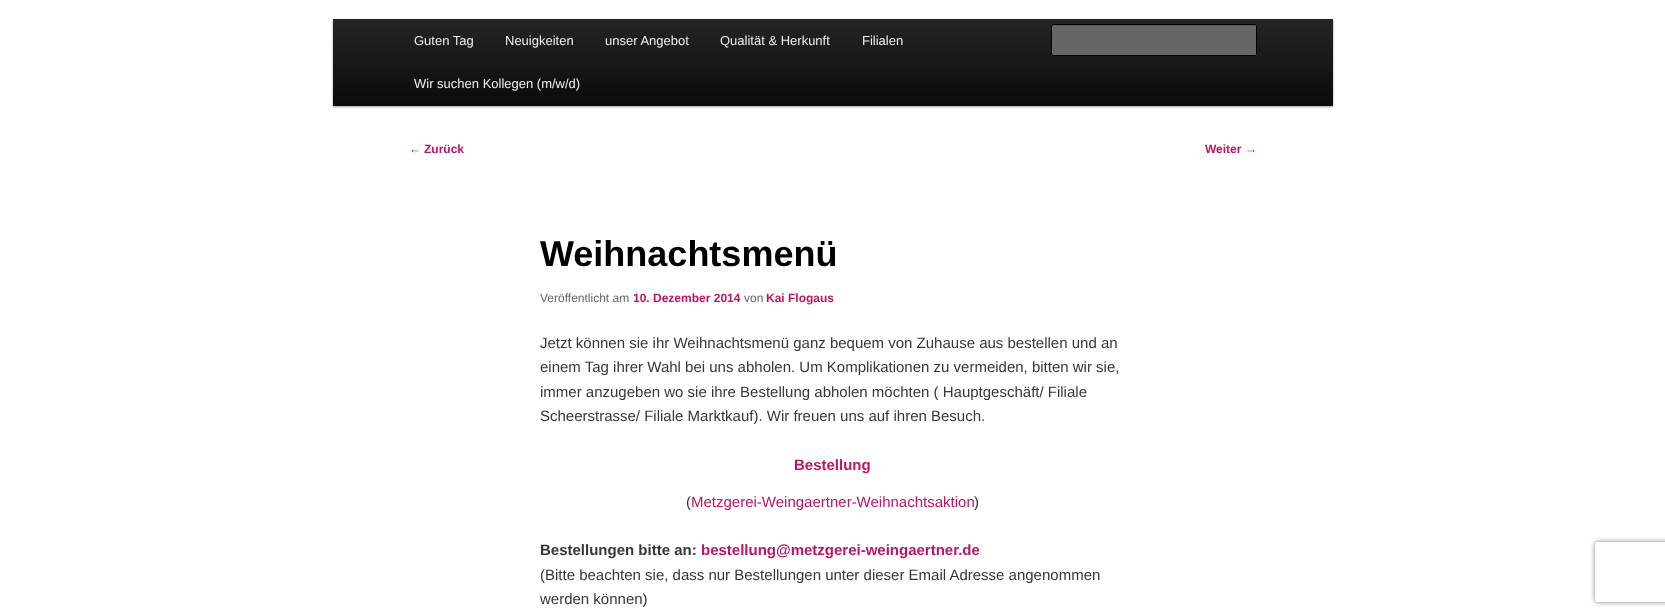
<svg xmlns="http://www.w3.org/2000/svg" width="1665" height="616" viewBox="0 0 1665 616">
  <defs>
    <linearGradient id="g1" gradientUnits="userSpaceOnUse" x1="833" y1="19" x2="833" y2="106"><stop offset="0" stop-color="rgb(37,37,37)"/><stop offset="1" stop-color="rgb(10,10,10)"/></linearGradient>
    <clipPath id="clip1"><path d="M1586 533H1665V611H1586ZM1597 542H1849C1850 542 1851 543 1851 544V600C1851 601 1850 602 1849 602H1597C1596 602 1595 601 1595 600V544C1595 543 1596 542 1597 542Z" clip-rule="evenodd"/></clipPath>
  </defs>
  <rect width="100%" height="100%" fill="rgb(255,255,255)"/>
  <rect x="333" y="20" width="1000" height="87" fill="rgba(0,0,0,0.4)" filter="blur(1px)"/>
  <rect x="333" y="19" width="1000" height="87" fill="url(#g1)"/>
  <g font-family="Liberation Sans" font-size="13" fill="rgb(238,238,238)">
    <text x="414" y="45">Guten Tag</text>
    <text x="505" y="45">Neuigkeiten</text>
    <text x="605" y="45">unser Angebot</text>
    <text x="720" y="45">Qualität &amp; Herkunft</text>
    <text x="862" y="45">Filialen</text>
    <text x="414" y="88">Wir suchen Kollegen (m/w/d)</text>
  </g>
  <rect x="1051" y="24" width="206" height="32" rx="2" fill="rgb(102,102,102)"/>
  <path d="M1053 26H1256V27V25H1255H1053C1052 25 1052 26 1052 27C1052 26 1052 26 1053 26Z" fill="rgb(92,92,92)"/>
  <rect x="1051.5" y="24.5" width="205" height="31" rx="1.5" fill="none" stroke="rgb(0,0,0)"/>
  <text x="409" y="153" font-family="Liberation Sans" font-size="12" fill="rgb(187,22,97)">←</text>
  <g font-family="Liberation Sans" font-size="12" font-weight="bold" fill="rgb(187,22,97)">
    <text x="424" y="153">Zurück</text>
    <text x="1205" y="153">Weiter</text>
  </g>
  <text x="1245" y="153" font-family="Liberation Sans" font-size="12" fill="rgb(187,22,97)">→</text>
  <text x="540" y="266" font-family="Liberation Sans" font-size="36" font-weight="bold" fill="rgb(0,0,0)">Weihnachtsmenü</text>
  <text x="540" y="302" font-family="Liberation Sans" font-size="12" fill="rgb(102,102,102)">Veröffentlicht am</text>
  <text x="633" y="302" font-family="Liberation Sans" font-size="12" font-weight="bold" fill="rgb(187,22,97)">10. Dezember 2014</text>
  <text x="744" y="302" font-family="Liberation Sans" font-size="12" fill="rgb(102,102,102)">von</text>
  <text x="766" y="302" font-family="Liberation Sans" font-size="12" font-weight="bold" fill="rgb(187,22,97)">Kai Flogaus</text>
  <g font-family="Liberation Sans" font-size="15" fill="rgb(55,55,55)">
    <text>
      <tspan x="540" y="348">Jetzt können sie ihr Weihnachtsmenü ganz bequem von Zuhause aus bestellen und an</tspan>
      <tspan x="540" y="372">einem Tag ihrer Wahl bei uns abholen. Um Komplikationen zu vermeiden, bitten wir sie,</tspan>
      <tspan x="540" y="397">immer anzugeben wo sie ihre Bestellung abholen möchten ( Hauptgeschäft/ Filiale</tspan>
      <tspan x="540" y="421">Scheerstrasse/ Filiale Marktkauf). Wir freuen uns auf ihren Besuch.</tspan>
    </text>
  </g>
  <text x="794" y="470" font-family="Liberation Sans" font-size="15" font-weight="bold" fill="rgb(187,22,97)">Bestellung</text>
  <text x="686" y="507" font-family="Liberation Sans" font-size="15" fill="rgb(55,55,55)">(</text>
  <text x="691" y="507" font-family="Liberation Sans" font-size="15" fill="rgb(187,22,97)">Metzgerei-Weingaertner-Weihnachtsaktion</text>
  <text x="974" y="507" font-family="Liberation Sans" font-size="15" fill="rgb(55,55,55)">)</text>
  <text x="540" y="555" font-family="Liberation Sans" font-size="15" font-weight="bold" fill="rgb(55,55,55)">Bestellungen bitte an:</text>
  <text x="701" y="555" font-family="Liberation Sans" font-size="15" font-weight="bold" fill="rgb(187,22,97)">bestellung@metzgerei-weingaertner.de</text>
  <g font-family="Liberation Sans" font-size="15" fill="rgb(55,55,55)">
    <text>
      <tspan x="540" y="580">(Bitte beachten sie, dass nur Bestellungen unter dieser Email Adresse angenommen</tspan>
      <tspan x="540" y="604">werden können)</tspan>
    </text>
  </g>
  <g clip-path="url(#clip1)">
    <rect x="1595" y="542" width="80" height="60" rx="2" fill="rgb(128,128,128)" filter="blur(2.5px)"/>
  </g>
</svg>
